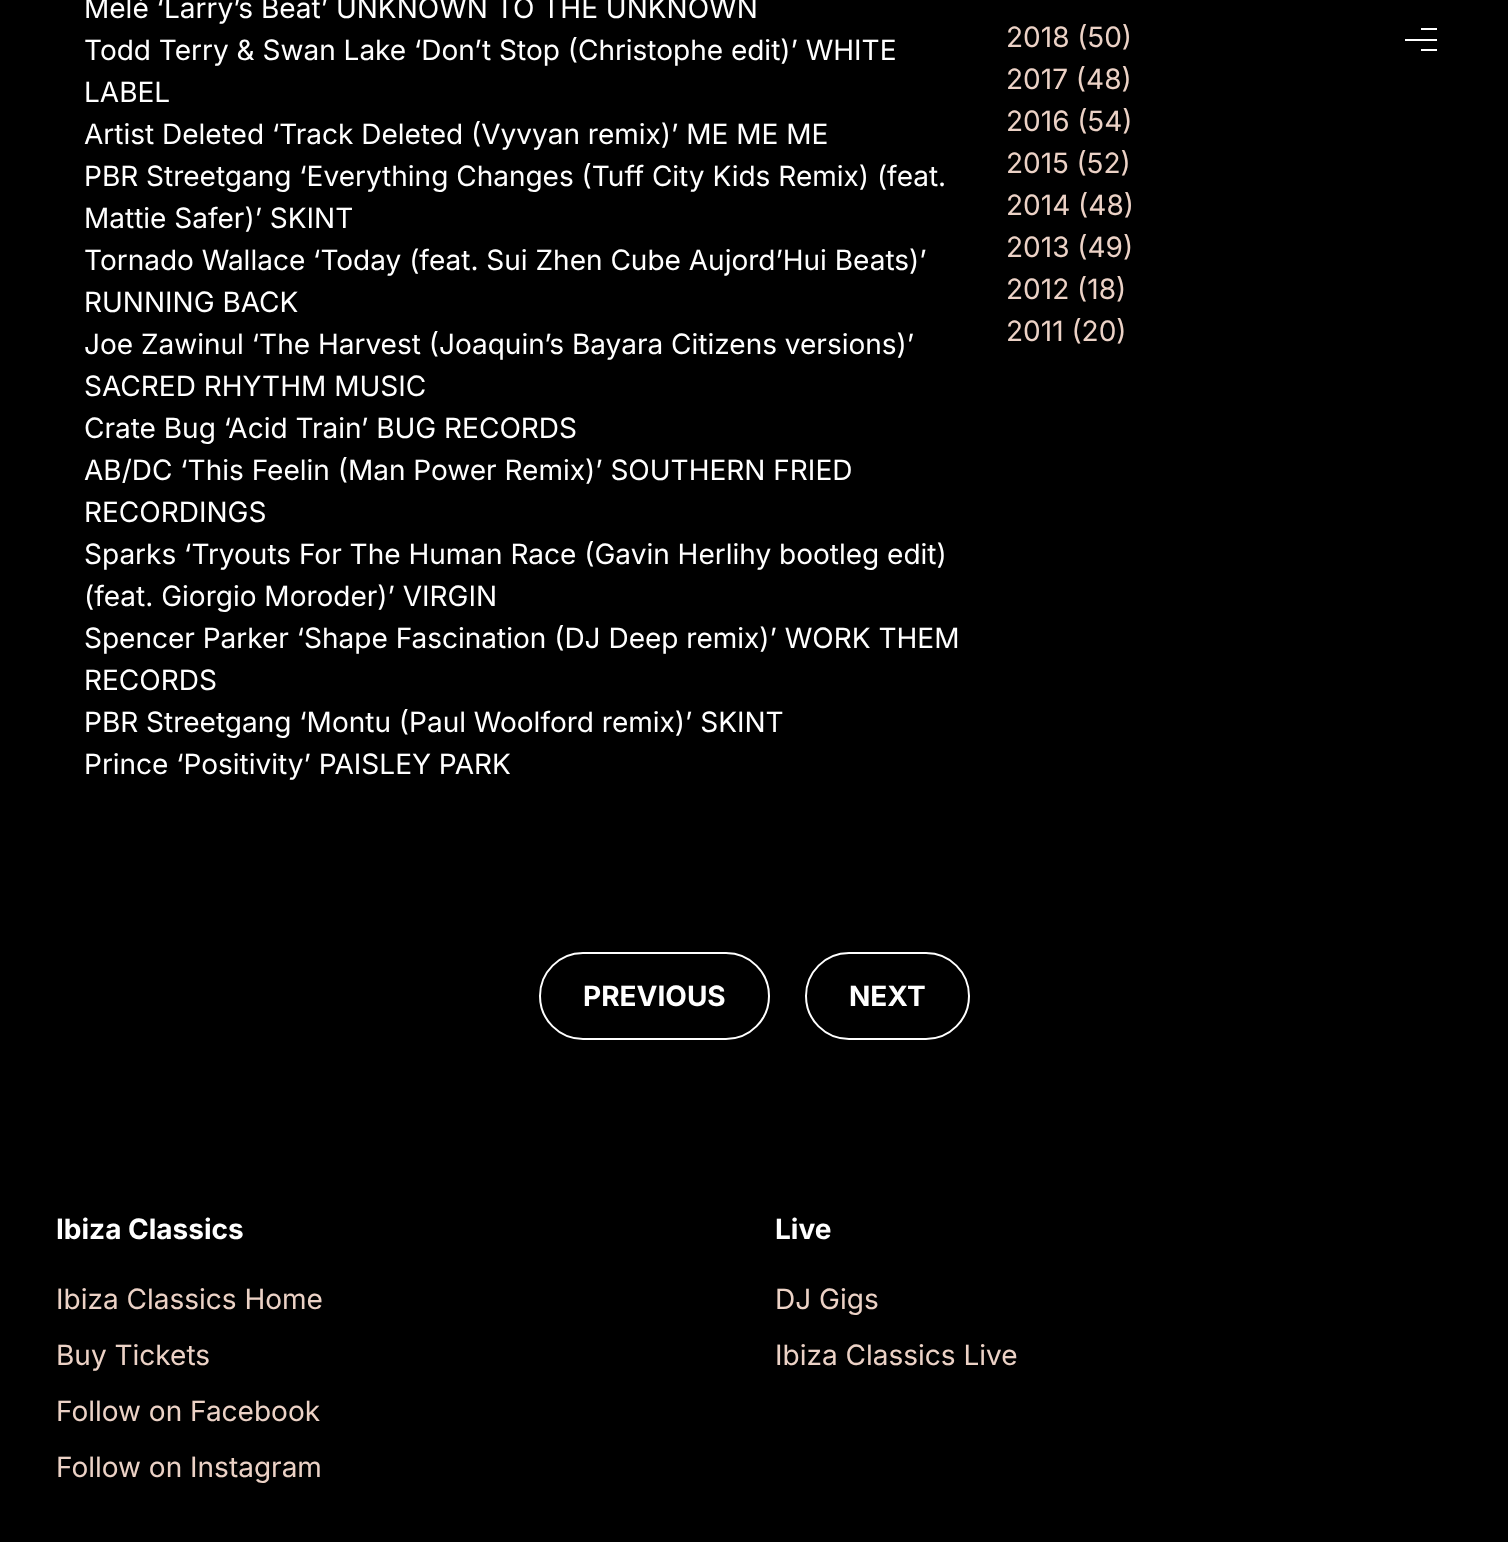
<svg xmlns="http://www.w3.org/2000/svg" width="1508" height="1542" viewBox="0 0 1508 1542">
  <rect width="100%" height="100%" fill="rgb(0,0,0)"/>
  <g font-family="Inter" font-size="28" fill="rgb(255,255,255)">
    <text>
      <tspan x="84" y="18">Melé ‘Larry’s Beat’ UNKNOWN TO THE UNKNOWN</tspan>
      <tspan x="84" y="60">Todd Terry &amp; Swan Lake ‘Don’t Stop (Christophe edit)’ WHITE</tspan>
      <tspan x="84" y="102">LABEL</tspan>
      <tspan x="84" y="144">Artist Deleted ‘Track Deleted (Vyvyan remix)’ ME ME ME</tspan>
      <tspan x="84" y="186">PBR Streetgang ‘Everything Changes (Tuff City Kids Remix) (feat.</tspan>
      <tspan x="84" y="228">Mattie Safer)’ SKINT</tspan>
      <tspan x="84" y="270">Tornado Wallace ‘Today (feat. Sui Zhen Cube Aujord’Hui Beats)’</tspan>
      <tspan x="84" y="312">RUNNING BACK</tspan>
      <tspan x="84" y="354">Joe Zawinul ‘The Harvest (Joaquin’s Bayara Citizens versions)’</tspan>
      <tspan x="84" y="396">SACRED RHYTHM MUSIC</tspan>
      <tspan x="84" y="438">Crate Bug ‘Acid Train’ BUG RECORDS</tspan>
      <tspan x="84" y="480">AB/DC ‘This Feelin (Man Power Remix)’ SOUTHERN FRIED</tspan>
      <tspan x="84" y="522">RECORDINGS</tspan>
      <tspan x="84" y="564">Sparks ‘Tryouts For The Human Race (Gavin Herlihy bootleg edit)</tspan>
      <tspan x="84" y="606">(feat. Giorgio Moroder)’ VIRGIN</tspan>
      <tspan x="84" y="648">Spencer Parker ‘Shape Fascination (DJ Deep remix)’ WORK THEM</tspan>
      <tspan x="84" y="690">RECORDS</tspan>
      <tspan x="84" y="732">PBR Streetgang ‘Montu (Paul Woolford remix)’ SKINT</tspan>
      <tspan x="84" y="774">Prince ‘Positivity’ PAISLEY PARK</tspan>
    </text>
  </g>
  <g font-family="Inter" font-size="28" fill="rgb(236,210,198)">
    <text>
      <tspan x="1006" y="47">2018 (50)</tspan>
      <tspan x="1006" y="89">2017 (48)</tspan>
      <tspan x="1006" y="131">2016 (54)</tspan>
      <tspan x="1006" y="173">2015 (52)</tspan>
      <tspan x="1006" y="215">2014 (48)</tspan>
      <tspan x="1006" y="257">2013 (49)</tspan>
      <tspan x="1006" y="299">2012 (18)</tspan>
      <tspan x="1006" y="341">2011 (20)</tspan>
    </text>
  </g>
  <rect x="540" y="953" width="229" height="86" rx="43" fill="none" stroke="rgb(255,255,255)" stroke-width="2"/>
  <text x="583" y="1006" font-family="Inter" font-size="28" font-weight="bold" fill="rgb(255,255,255)">PREVIOUS</text>
  <rect x="806" y="953" width="163" height="86" rx="43" fill="none" stroke="rgb(255,255,255)" stroke-width="2"/>
  <g font-family="Inter" font-size="28" font-weight="bold" fill="rgb(255,255,255)">
    <text x="849" y="1006">NEXT</text>
    <text x="56" y="1239">Ibiza Classics</text>
  </g>
  <g font-family="Inter" font-size="28" fill="rgb(236,210,198)">
    <text x="56" y="1309">Ibiza Classics Home</text>
    <text x="56" y="1365">Buy Tickets</text>
    <text x="56" y="1421">Follow on Facebook</text>
    <text x="56" y="1477">Follow on Instagram</text>
  </g>
  <text x="775" y="1239" font-family="Inter" font-size="28" font-weight="bold" fill="rgb(255,255,255)">Live</text>
  <g font-family="Inter" font-size="28" fill="rgb(236,210,198)">
    <text x="775" y="1309">DJ Gigs</text>
    <text x="775" y="1365">Ibiza Classics Live</text>
  </g>
  <rect x="1405" y="39" width="32" height="2" fill="rgb(255,255,255)"/>
  <rect x="1421" y="28" width="16" height="2" fill="rgb(255,255,255)"/>
  <rect x="1421" y="49" width="16" height="2" fill="rgb(255,255,255)"/>
</svg>
